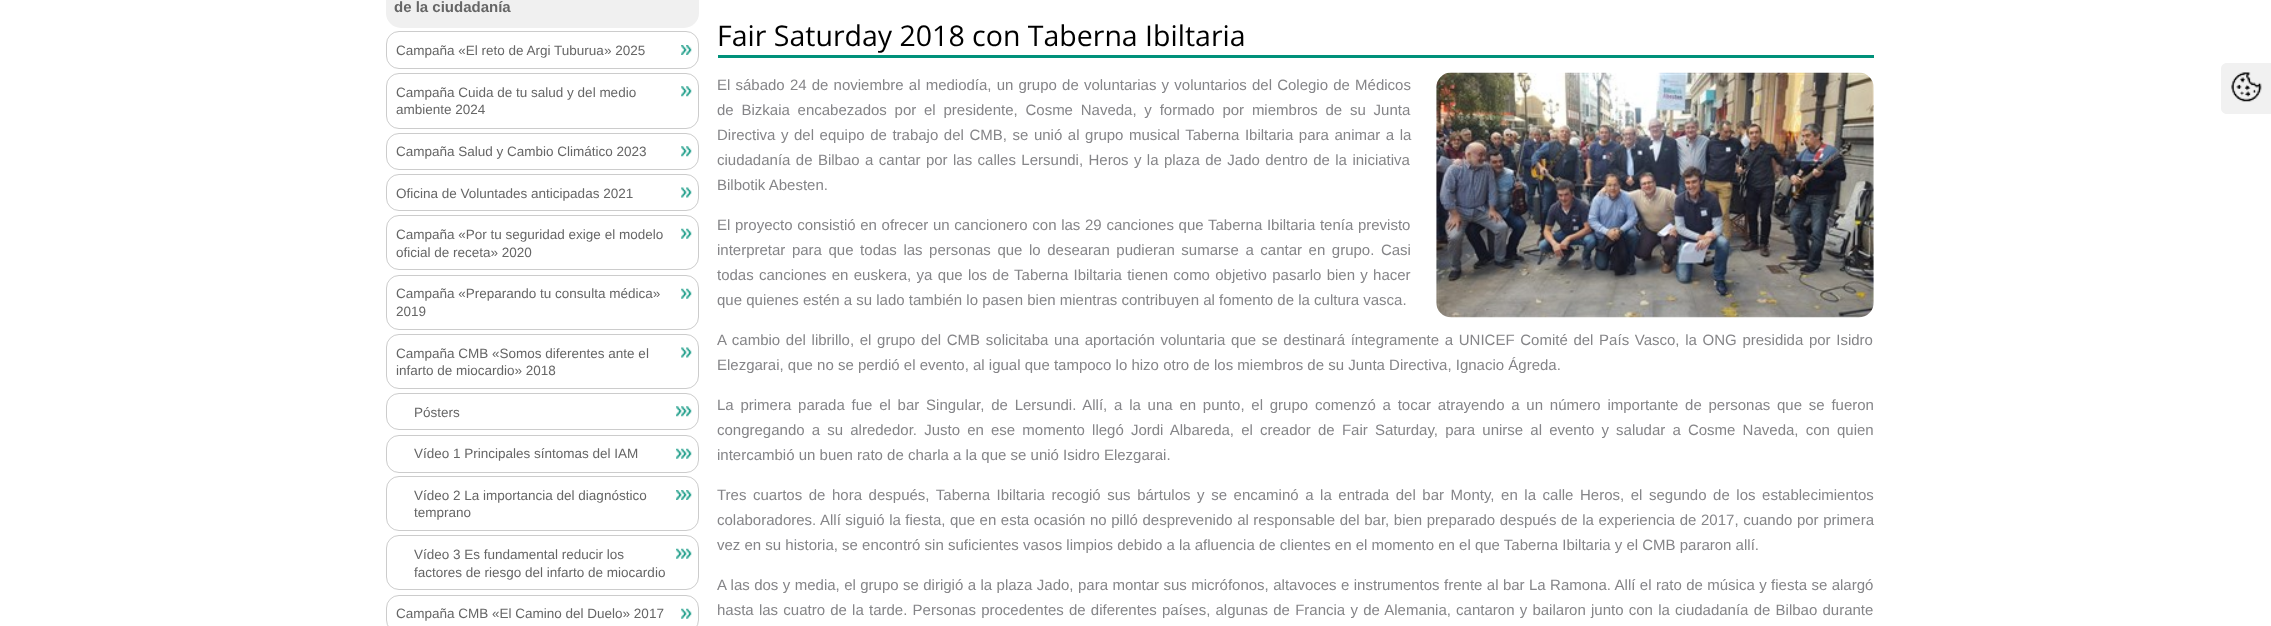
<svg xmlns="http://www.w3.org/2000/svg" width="2271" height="626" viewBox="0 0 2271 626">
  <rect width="100%" height="100%" fill="rgb(255,255,255)"/>
  <rect x="386" y="-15" width="313" height="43" rx="15" fill="rgb(240,240,240)"/>
  <text x="394" y="12" font-family="Liberation Sans" font-size="15" font-weight="bold" fill="rgb(102,102,102)">de la ciudadanía</text>
  <image x="681" y="45" width="11" height="10" href="pic1.png"/>
  <rect x="386.5" y="31.5" width="312" height="37" rx="12.5" fill="none" stroke="rgb(204,204,204)"/>
  <text x="396" y="55" font-family="Liberation Sans" font-size="13.5" fill="rgb(102,102,102)">Campaña «El reto de Argi Tuburua» 2025</text>
  <image x="681" y="86" width="11" height="11" href="pic2.png"/>
  <rect x="386.5" y="73.5" width="312" height="55" rx="12.5" fill="none" stroke="rgb(204,204,204)"/>
  <g font-family="Liberation Sans" font-size="13.5" fill="rgb(102,102,102)">
    <text>
      <tspan x="396" y="97">Campaña Cuida de tu salud y del medio</tspan>
      <tspan x="396" y="114">ambiente 2024</tspan>
    </text>
  </g>
  <image x="681" y="146" width="11" height="11" href="pic2.png"/>
  <rect x="386.5" y="133.5" width="312" height="36" rx="12.5" fill="none" stroke="rgb(204,204,204)"/>
  <text x="396" y="156" font-family="Liberation Sans" font-size="13.5" fill="rgb(102,102,102)">Campaña Salud y Cambio Climático 2023</text>
  <image x="681" y="187" width="11" height="11" href="pic3.png"/>
  <rect x="386.5" y="174.5" width="312" height="36" rx="12.5" fill="none" stroke="rgb(204,204,204)"/>
  <text x="396" y="198" font-family="Liberation Sans" font-size="13.5" fill="rgb(102,102,102)">Oficina de Voluntades anticipadas 2021</text>
  <image x="681" y="228" width="11" height="11" href="pic4.png"/>
  <rect x="386.5" y="215.5" width="312" height="54" rx="12.5" fill="none" stroke="rgb(204,204,204)"/>
  <g font-family="Liberation Sans" font-size="13.5" fill="rgb(102,102,102)">
    <text>
      <tspan x="396" y="239">Campaña «Por tu seguridad exige el modelo</tspan>
      <tspan x="396" y="257">oficial de receta» 2020</tspan>
    </text>
  </g>
  <image x="681" y="288" width="11" height="11" href="pic4.png"/>
  <rect x="386.5" y="275.5" width="312" height="54" rx="12.5" fill="none" stroke="rgb(204,204,204)"/>
  <g font-family="Liberation Sans" font-size="13.5" fill="rgb(102,102,102)">
    <text>
      <tspan x="396" y="298">Campaña «Preparando tu consulta médica»</tspan>
      <tspan x="396" y="316">2019</tspan>
    </text>
  </g>
  <image x="681" y="347" width="11" height="11" href="pic3.png"/>
  <rect x="386.5" y="334.5" width="312" height="54" rx="12.5" fill="none" stroke="rgb(204,204,204)"/>
  <g font-family="Liberation Sans" font-size="13.5" fill="rgb(102,102,102)">
    <text>
      <tspan x="396" y="358">Campaña CMB «Somos diferentes ante el</tspan>
      <tspan x="396" y="375">infarto de miocardio» 2018</tspan>
    </text>
  </g>
  <image x="676" y="406" width="16" height="11" href="pic5.png"/>
  <rect x="386.5" y="393.5" width="312" height="36" rx="12.5" fill="none" stroke="rgb(204,204,204)"/>
  <text x="414" y="417" font-family="Liberation Sans" font-size="13.5" fill="rgb(102,102,102)">Pósters</text>
  <image x="676" y="448" width="16" height="11" href="pic6.png"/>
  <rect x="386.5" y="435.5" width="312" height="37" rx="12.5" fill="none" stroke="rgb(204,204,204)"/>
  <text x="414" y="458" font-family="Liberation Sans" font-size="13.5" fill="rgb(102,102,102)">Vídeo 1 Principales síntomas del IAM</text>
  <image x="676" y="490" width="16" height="10" href="pic7.png"/>
  <rect x="386.5" y="476.5" width="312" height="54" rx="12.5" fill="none" stroke="rgb(204,204,204)"/>
  <g font-family="Liberation Sans" font-size="13.5" fill="rgb(102,102,102)">
    <text>
      <tspan x="414" y="500">Vídeo 2 La importancia del diagnóstico</tspan>
      <tspan x="414" y="517">temprano</tspan>
    </text>
  </g>
  <image x="676" y="548" width="16" height="11" href="pic6.png"/>
  <rect x="386.5" y="535.5" width="312" height="54" rx="12.5" fill="none" stroke="rgb(204,204,204)"/>
  <g font-family="Liberation Sans" font-size="13.5" fill="rgb(102,102,102)">
    <text>
      <tspan x="414" y="559">Vídeo 3 Es fundamental reducir los</tspan>
      <tspan x="414" y="577">factores de riesgo del infarto de miocardio</tspan>
    </text>
  </g>
  <image x="681" y="608" width="11" height="11" href="pic4.png"/>
  <rect x="386.5" y="595.5" width="312" height="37" rx="12.5" fill="none" stroke="rgb(204,204,204)"/>
  <text x="396" y="618" font-family="Liberation Sans" font-size="13.5" fill="rgb(102,102,102)">Campaña CMB «El Camino del Duelo» 2017</text>
  <rect x="718" y="55" width="1156" height="3" fill="rgb(0,145,122)"/>
  <text x="717" y="46" font-family="Open Sans" font-size="28.5" fill="rgb(0,0,0)">Fair Saturday 2018 con Taberna Ibiltaria</text>
  <image x="1436" y="72" width="438" height="246" href="pic8.png"/>
  <g font-family="Liberation Sans" font-size="15" fill="rgb(133,133,136)">
    <text>
      <tspan x="717" y="90" word-spacing="1">El sábado 24 de noviembre al mediodía, un grupo de voluntarias y voluntarios del Colegio de Médicos</tspan>
      <tspan x="717" y="115" word-spacing="3.6">de Bizkaia encabezados por el presidente, Cosme Naveda, y formado por miembros de su Junta</tspan>
      <tspan x="717" y="140" word-spacing="1.4">Directiva y del equipo de trabajo del CMB, se unió al grupo musical Taberna Ibiltaria para animar a la</tspan>
      <tspan x="717" y="165" word-spacing="1.25">ciudadanía de Bilbao a cantar por las calles Lersundi, Heros y la plaza de Jado dentro de la iniciativa</tspan>
      <tspan x="717" y="190">Bilbotik Abesten.</tspan>
    </text>
    <text>
      <tspan x="717" y="230" word-spacing="0.5">El proyecto consistió en ofrecer un cancionero con las 29 canciones que Taberna Ibiltaria tenía previsto</tspan>
      <tspan x="717" y="255" word-spacing="2.4">interpretar para que todas las personas que lo desearan pudieran sumarse a cantar en grupo. Casi</tspan>
      <tspan x="717" y="280" word-spacing="1.1">todas canciones en euskera, ya que los de Taberna Ibiltaria tienen como objetivo pasarlo bien y hacer</tspan>
      <tspan x="717" y="305">que quienes estén a su lado también lo pasen bien mientras contribuyen al fomento de la cultura vasca.</tspan>
    </text>
    <text>
      <tspan x="717" y="345" word-spacing="1.5">A cambio del librillo, el grupo del CMB solicitaba una aportación voluntaria que se destinará íntegramente a UNICEF Comité del País Vasco, la ONG presidida por Isidro</tspan>
      <tspan x="717" y="370">Elezgarai, que no se perdió el evento, al igual que tampoco lo hizo otro de los miembros de su Junta Directiva, Ignacio Ágreda.</tspan>
    </text>
    <text>
      <tspan x="717" y="410" word-spacing="2.6">La primera parada fue el bar Singular, de Lersundi. Allí, a la una en punto, el grupo comenzó a tocar atrayendo a un número importante de personas que se fueron</tspan>
      <tspan x="717" y="435" word-spacing="3">congregando a su alrededor. Justo en ese momento llegó Jordi Albareda, el creador de Fair Saturday, para unirse al evento y saludar a Cosme Naveda, con quien</tspan>
      <tspan x="717" y="460">intercambió un buen rato de charla a la que se unió Isidro Elezgarai.</tspan>
    </text>
    <text>
      <tspan x="717" y="500" word-spacing="2.4">Tres cuartos de hora después, Taberna Ibiltaria recogió sus bártulos y se encaminó a la entrada del bar Monty, en la calle Heros, el segundo de los establecimientos</tspan>
      <tspan x="717" y="525" word-spacing="0.4">colaboradores. Allí siguió la fiesta, que en esta ocasión no pilló desprevenido al responsable del bar, bien preparado después de la experiencia de 2017, cuando por primera</tspan>
      <tspan x="717" y="550">vez en su historia, se encontró sin suficientes vasos limpios debido a la afluencia de clientes en el momento en el que Taberna Ibiltaria y el CMB pararon allí.</tspan>
    </text>
    <text>
      <tspan x="717" y="590" word-spacing="0.25">A las dos y media, el grupo se dirigió a la plaza Jado, para montar sus micrófonos, altavoces e instrumentos frente al bar La Ramona. Allí el rato de música y fiesta se alargó</tspan>
      <tspan x="717" y="615" word-spacing="1.05">hasta las cuatro de la tarde. Personas procedentes de diferentes países, algunas de Francia y de Alemania, cantaron y bailaron junto con la ciudadanía de Bilbao durante</tspan>
    </text>
  </g>
  <path d="M2227 63H2271V114H2227C2223.5 114 2221 111.5 2221 108V69C2221 65.5 2223.5 63 2227 63Z" fill="rgb(241,241,241)"/>
  <image x="2231" y="72" width="31" height="30" href="pic9.png"/>
</svg>
